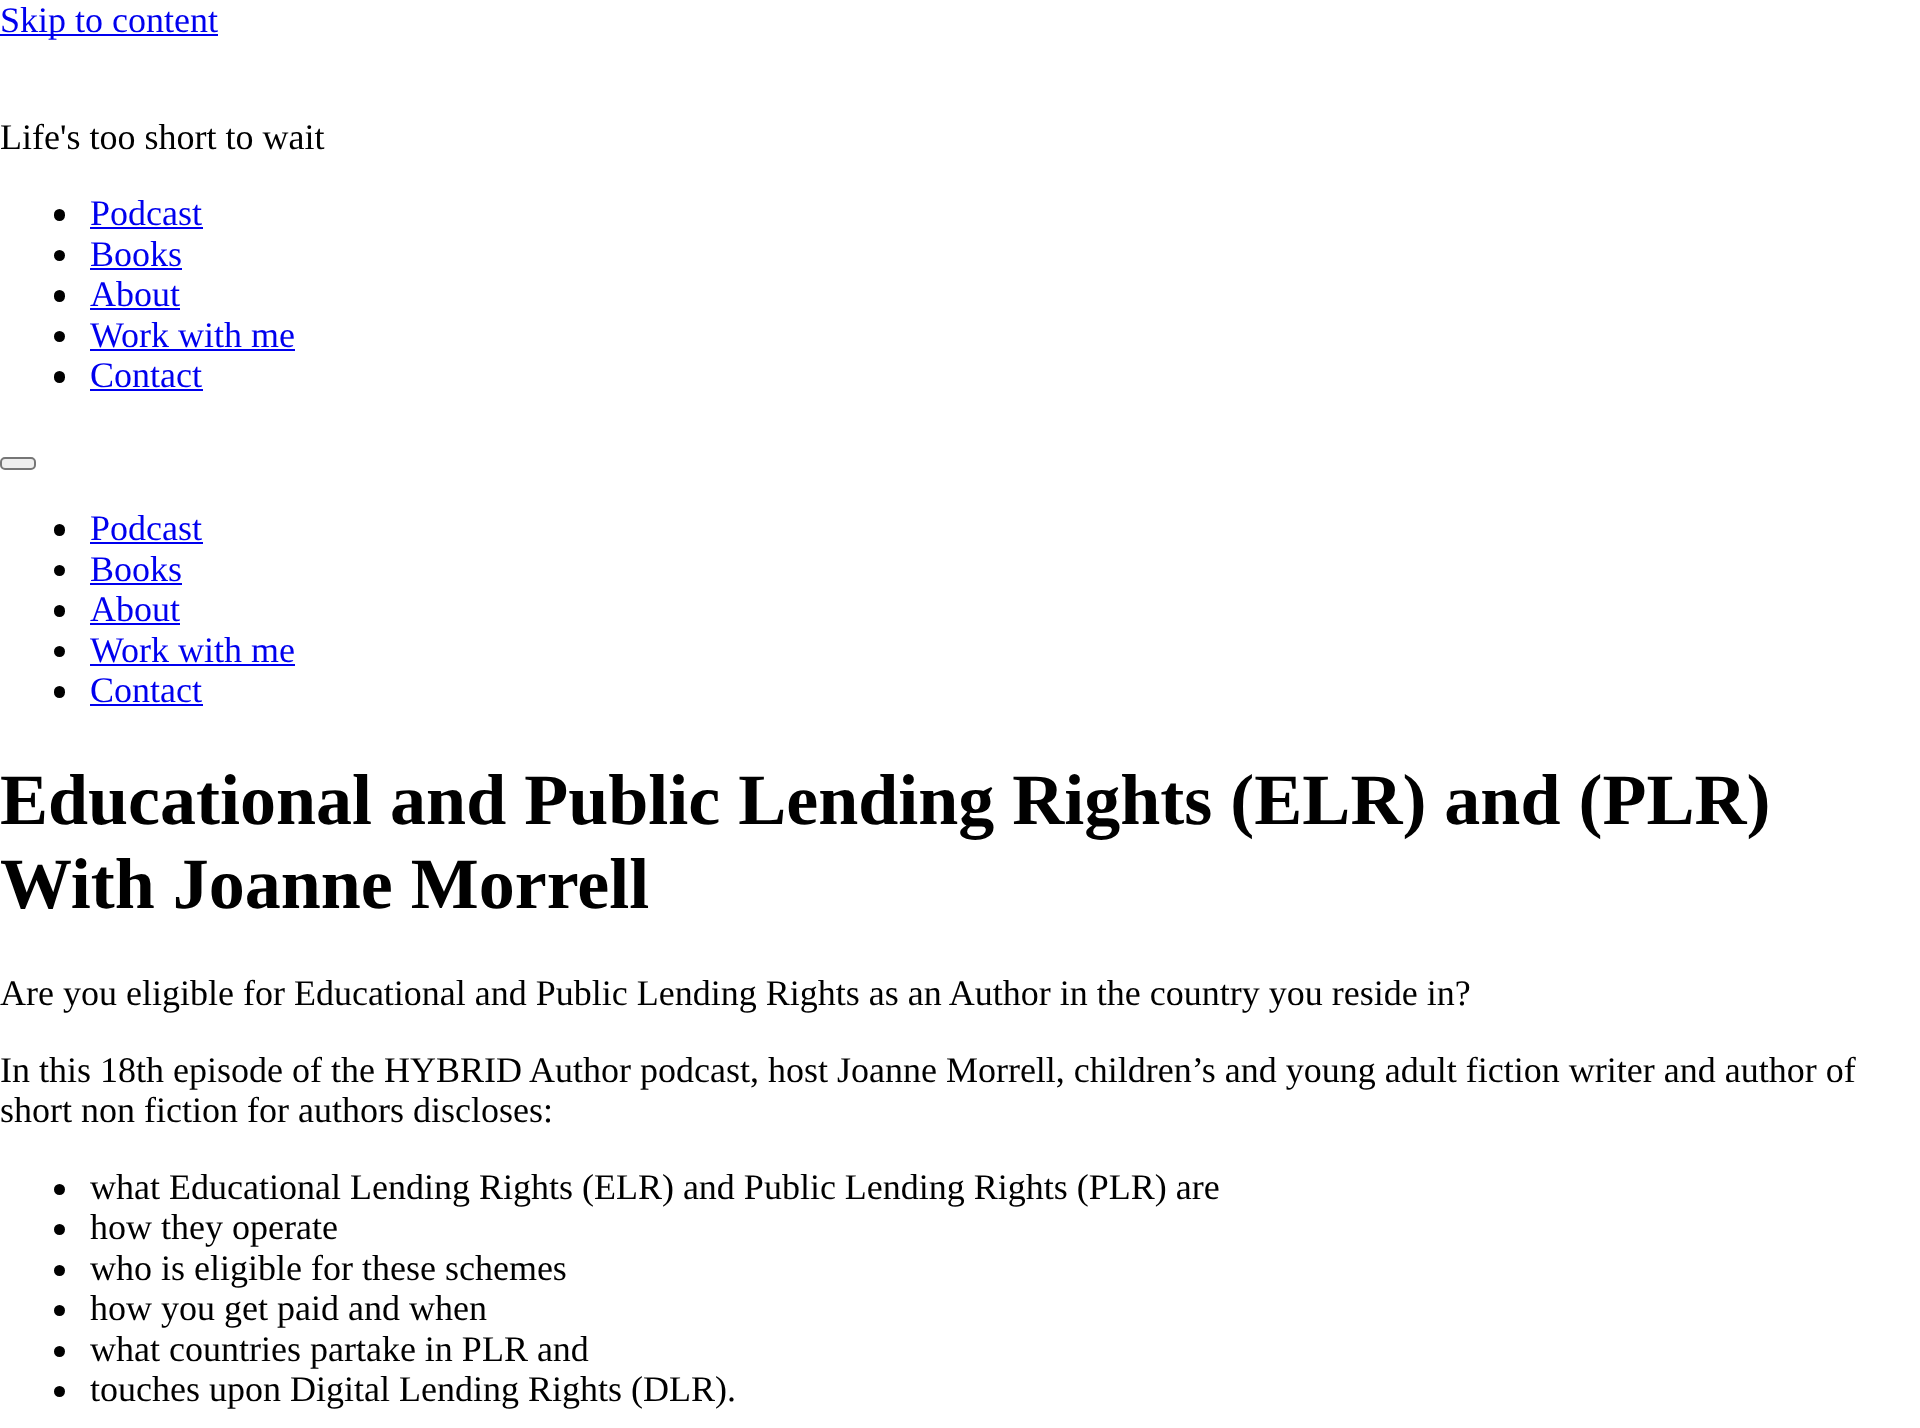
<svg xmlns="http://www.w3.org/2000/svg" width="1920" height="1428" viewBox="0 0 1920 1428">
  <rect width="100%" height="100%" fill="rgb(255,255,255)"/>
  <rect x="0" y="34" width="218" height="2" fill="rgb(0,0,238)"/>
  <text x="0" y="32" font-family="Liberation Serif" font-size="36" fill="rgb(0,0,238)">Skip to content</text>
  <text x="0" y="149" font-family="Liberation Serif" font-size="36" fill="rgb(0,0,0)">Life's too short to wait</text>
  <rect x="54" y="209" width="11" height="12" rx="5.5" fill="rgb(0,0,0)"/>
  <text x="90" y="225" font-family="Liberation Serif" font-size="36" fill="rgb(0,0,238)">Podcast</text>
  <rect x="90" y="227" width="113" height="2" fill="rgb(0,0,238)"/>
  <circle cx="59.5" cy="255.5" r="5.5" fill="rgb(0,0,0)"/>
  <text x="90" y="266" font-family="Liberation Serif" font-size="36" fill="rgb(0,0,238)">Books</text>
  <rect x="90" y="268" width="92" height="2" fill="rgb(0,0,238)"/>
  <rect x="54" y="290" width="11" height="12" rx="5.5" fill="rgb(0,0,0)"/>
  <text x="90" y="306" font-family="Liberation Serif" font-size="36" fill="rgb(0,0,238)">About</text>
  <rect x="90" y="308" width="90" height="2" fill="rgb(0,0,238)"/>
  <circle cx="59.5" cy="336.5" r="5.5" fill="rgb(0,0,0)"/>
  <text x="90" y="347" font-family="Liberation Serif" font-size="36" fill="rgb(0,0,238)">Work with me</text>
  <rect x="90" y="349" width="205" height="2" fill="rgb(0,0,238)"/>
  <rect x="54" y="371" width="11" height="12" rx="5.5" fill="rgb(0,0,0)"/>
  <text x="90" y="387" font-family="Liberation Serif" font-size="36" fill="rgb(0,0,238)">Contact</text>
  <rect x="90" y="389" width="113" height="2" fill="rgb(0,0,238)"/>
  <rect x="1" y="458" width="34" height="11" rx="4" fill="rgb(239,239,239)" stroke="rgb(118,118,118)" stroke-width="2"/>
  <rect x="54" y="524" width="11" height="12" rx="5.5" fill="rgb(0,0,0)"/>
  <text x="90" y="540" font-family="Liberation Serif" font-size="36" fill="rgb(0,0,238)">Podcast</text>
  <rect x="90" y="542" width="113" height="2" fill="rgb(0,0,238)"/>
  <circle cx="59.5" cy="570.5" r="5.5" fill="rgb(0,0,0)"/>
  <text x="90" y="581" font-family="Liberation Serif" font-size="36" fill="rgb(0,0,238)">Books</text>
  <rect x="90" y="583" width="92" height="2" fill="rgb(0,0,238)"/>
  <rect x="54" y="605" width="11" height="12" rx="5.5" fill="rgb(0,0,0)"/>
  <text x="90" y="621" font-family="Liberation Serif" font-size="36" fill="rgb(0,0,238)">About</text>
  <rect x="90" y="623" width="90" height="2" fill="rgb(0,0,238)"/>
  <circle cx="59.5" cy="651.5" r="5.5" fill="rgb(0,0,0)"/>
  <text x="90" y="662" font-family="Liberation Serif" font-size="36" fill="rgb(0,0,238)">Work with me</text>
  <rect x="90" y="664" width="205" height="2" fill="rgb(0,0,238)"/>
  <rect x="54" y="686" width="11" height="12" rx="5.5" fill="rgb(0,0,0)"/>
  <text x="90" y="702" font-family="Liberation Serif" font-size="36" fill="rgb(0,0,238)">Contact</text>
  <rect x="90" y="704" width="113" height="2" fill="rgb(0,0,238)"/>
  <g font-family="Liberation Serif" font-size="72" font-weight="bold" fill="rgb(0,0,0)">
    <text>
      <tspan x="0" y="824">Educational and Public Lending Rights (ELR) and (PLR)</tspan>
      <tspan x="0" y="908">With Joanne Morrell</tspan>
    </text>
  </g>
  <g font-family="Liberation Serif" font-size="36" fill="rgb(0,0,0)">
    <text x="0" y="1005">Are you eligible for Educational and Public Lending Rights as an Author in the country you reside in?</text>
    <text>
      <tspan x="0" y="1082">In this 18th episode of the HYBRID Author podcast, host Joanne Morrell, children’s and young adult fiction writer and author of</tspan>
      <tspan x="0" y="1122">short non fiction for authors discloses:</tspan>
    </text>
  </g>
  <circle cx="59.5" cy="1189.5" r="5.5" fill="rgb(0,0,0)"/>
  <text x="90" y="1199" font-family="Liberation Serif" font-size="36" fill="rgb(0,0,0)">what Educational Lending Rights (ELR) and Public Lending Rights (PLR) are</text>
  <circle cx="59.5" cy="1229.5" r="5.5" fill="rgb(0,0,0)"/>
  <text x="90" y="1239" font-family="Liberation Serif" font-size="36" fill="rgb(0,0,0)">how they operate</text>
  <circle cx="59.5" cy="1270.5" r="5.5" fill="rgb(0,0,0)"/>
  <text x="90" y="1280" font-family="Liberation Serif" font-size="36" fill="rgb(0,0,0)">who is eligible for these schemes</text>
  <circle cx="59.5" cy="1310.5" r="5.5" fill="rgb(0,0,0)"/>
  <text x="90" y="1320" font-family="Liberation Serif" font-size="36" fill="rgb(0,0,0)">how you get paid and when</text>
  <circle cx="59.5" cy="1351.5" r="5.5" fill="rgb(0,0,0)"/>
  <text x="90" y="1361" font-family="Liberation Serif" font-size="36" fill="rgb(0,0,0)">what countries partake in PLR and</text>
  <circle cx="59.5" cy="1391.5" r="5.5" fill="rgb(0,0,0)"/>
  <text x="90" y="1401" font-family="Liberation Serif" font-size="36" fill="rgb(0,0,0)">touches upon Digital Lending Rights (DLR).</text>
</svg>
